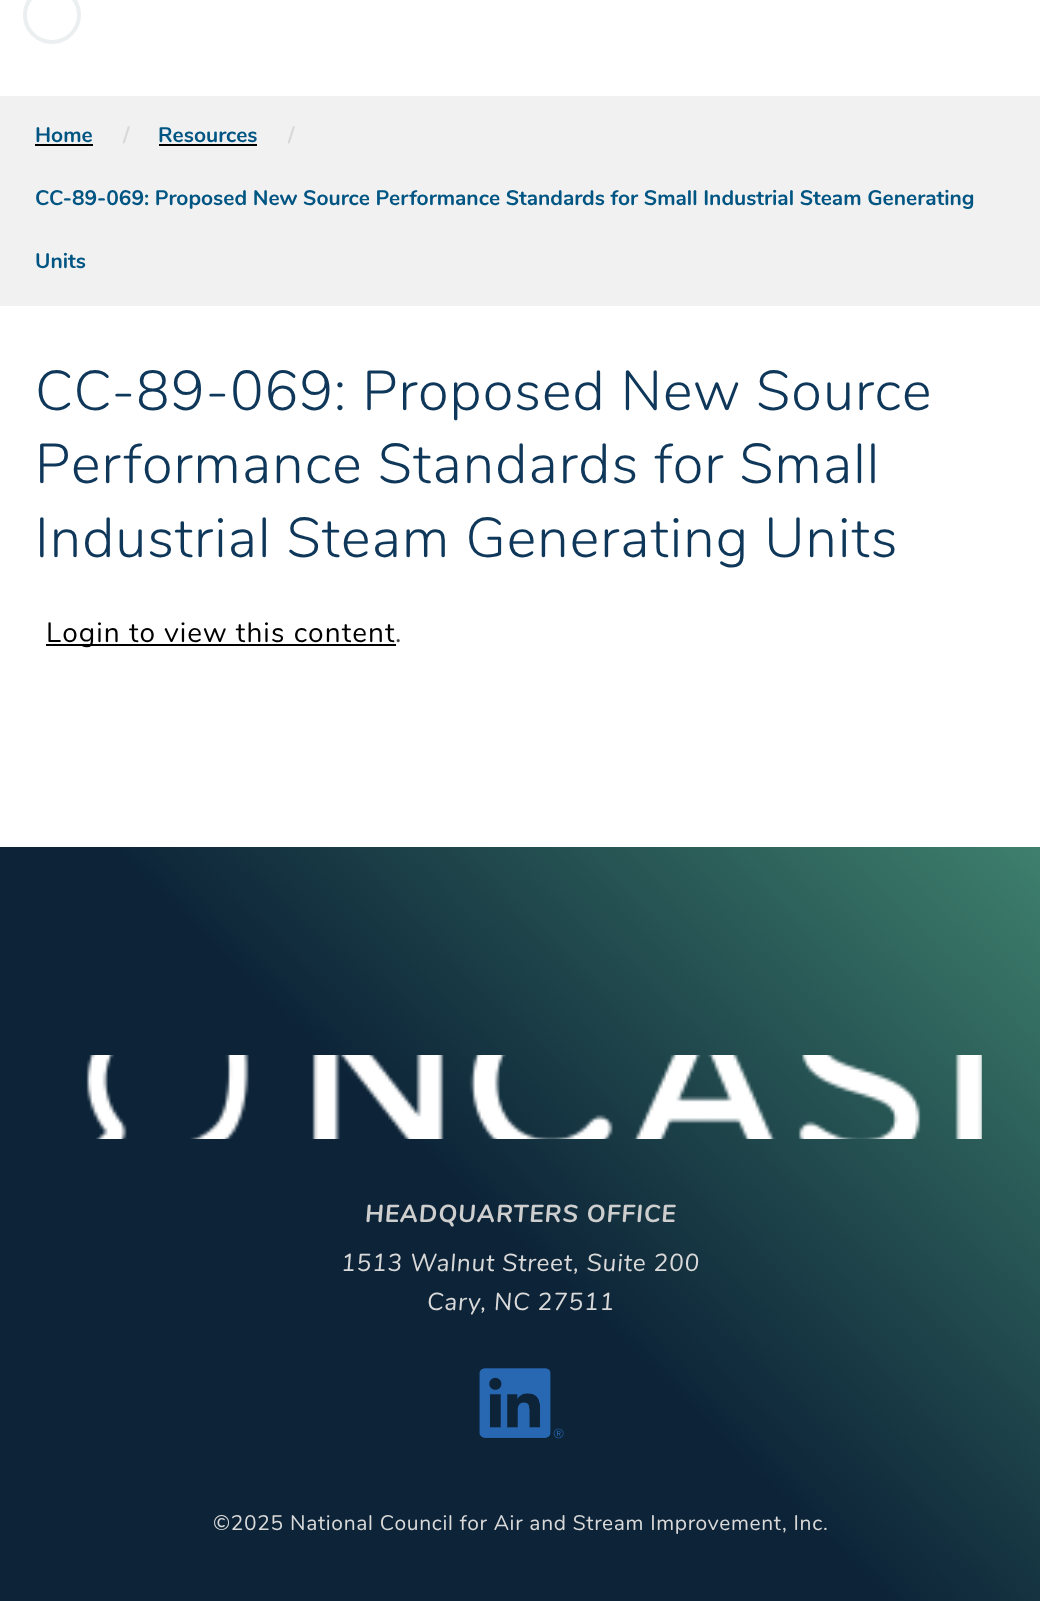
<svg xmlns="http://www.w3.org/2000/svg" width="1040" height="1601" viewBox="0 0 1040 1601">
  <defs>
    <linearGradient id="g1" gradientUnits="userSpaceOnUse" x1="70" y1="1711" x2="971" y2="779"><stop offset="0.5" stop-color="rgb(13,36,56)"/><stop offset="1" stop-color="rgb(62,128,109)"/></linearGradient>
  </defs>
  <rect width="100%" height="100%" fill="rgb(255,255,255)"/>
  <circle cx="52" cy="15" r="27" fill="none" stroke="rgb(235,239,240)" stroke-width="4"/>
  <rect x="0" y="96" width="1040" height="210" fill="rgb(241,241,241)"/>
  <text x="35" y="142" font-family="Nunito" font-size="21" font-weight="bold" fill="rgb(0,85,131)">Home</text>
  <rect x="35" y="144" width="58" height="2" fill="rgb(0,0,0)"/>
  <text x="123" y="142" font-family="Nunito" font-size="21" font-weight="bold" fill="rgb(217,217,217)">/</text>
  <text x="158" y="142" font-family="Nunito" font-size="21" font-weight="bold" fill="rgb(0,85,131)">Resources</text>
  <rect x="159" y="144" width="98" height="2" fill="rgb(0,0,0)"/>
  <text x="288" y="142" font-family="Nunito" font-size="21" font-weight="bold" fill="rgb(217,217,217)">/</text>
  <g font-family="Nunito" font-size="21" font-weight="bold" fill="rgb(0,85,131)">
    <text x="35" y="205">CC-89-069: Proposed New Source Performance Standards for Small Industrial Steam Generating</text>
    <text x="35" y="268">Units</text>
  </g>
  <g font-family="Nunito" font-size="56" font-weight="300" letter-spacing="1.05" fill="rgb(14,55,90)">
    <text>
      <tspan x="35" y="410">CC-89-069: Proposed New Source</tspan>
      <tspan x="35" y="483">Performance Standards for Small</tspan>
      <tspan x="35" y="557">Industrial Steam Generating Units</tspan>
    </text>
  </g>
  <rect x="46" y="644" width="350" height="2" fill="rgb(0,0,0)"/>
  <text x="46" y="642" font-family="Nunito" font-size="28" letter-spacing="1.05" fill="rgb(0,0,0)">Login to view this content</text>
  <text x="395" y="642" font-family="Nunito" font-size="28" letter-spacing="1.05" fill="rgb(70,70,70)">.</text>
  <rect x="0" y="847" width="1040" height="754" fill="url(#g1)"/>
  <image x="86" y="1055" width="896" height="84" href="pic1.png"/>
  <text x="365" y="1222" font-family="Nunito" font-size="24.5" font-weight="bold" font-style="italic" letter-spacing="0.9" fill="rgb(206,206,206)">HEADQUARTERS OFFICE</text>
  <g font-family="Nunito" font-size="24.5" font-style="italic" letter-spacing="0.8" fill="rgb(217,217,217)">
    <text x="341" y="1271">1513 Walnut Street, Suite 200</text>
    <text x="427" y="1310">Cary, NC 27511</text>
  </g>
  <image x="479" y="1368" width="85" height="71" href="pic2.png"/>
  <text x="213" y="1530" font-family="Nunito" font-size="21" letter-spacing="0.68" fill="rgb(217,217,217)">©2025 National Council for Air and Stream Improvement, Inc.</text>
</svg>
